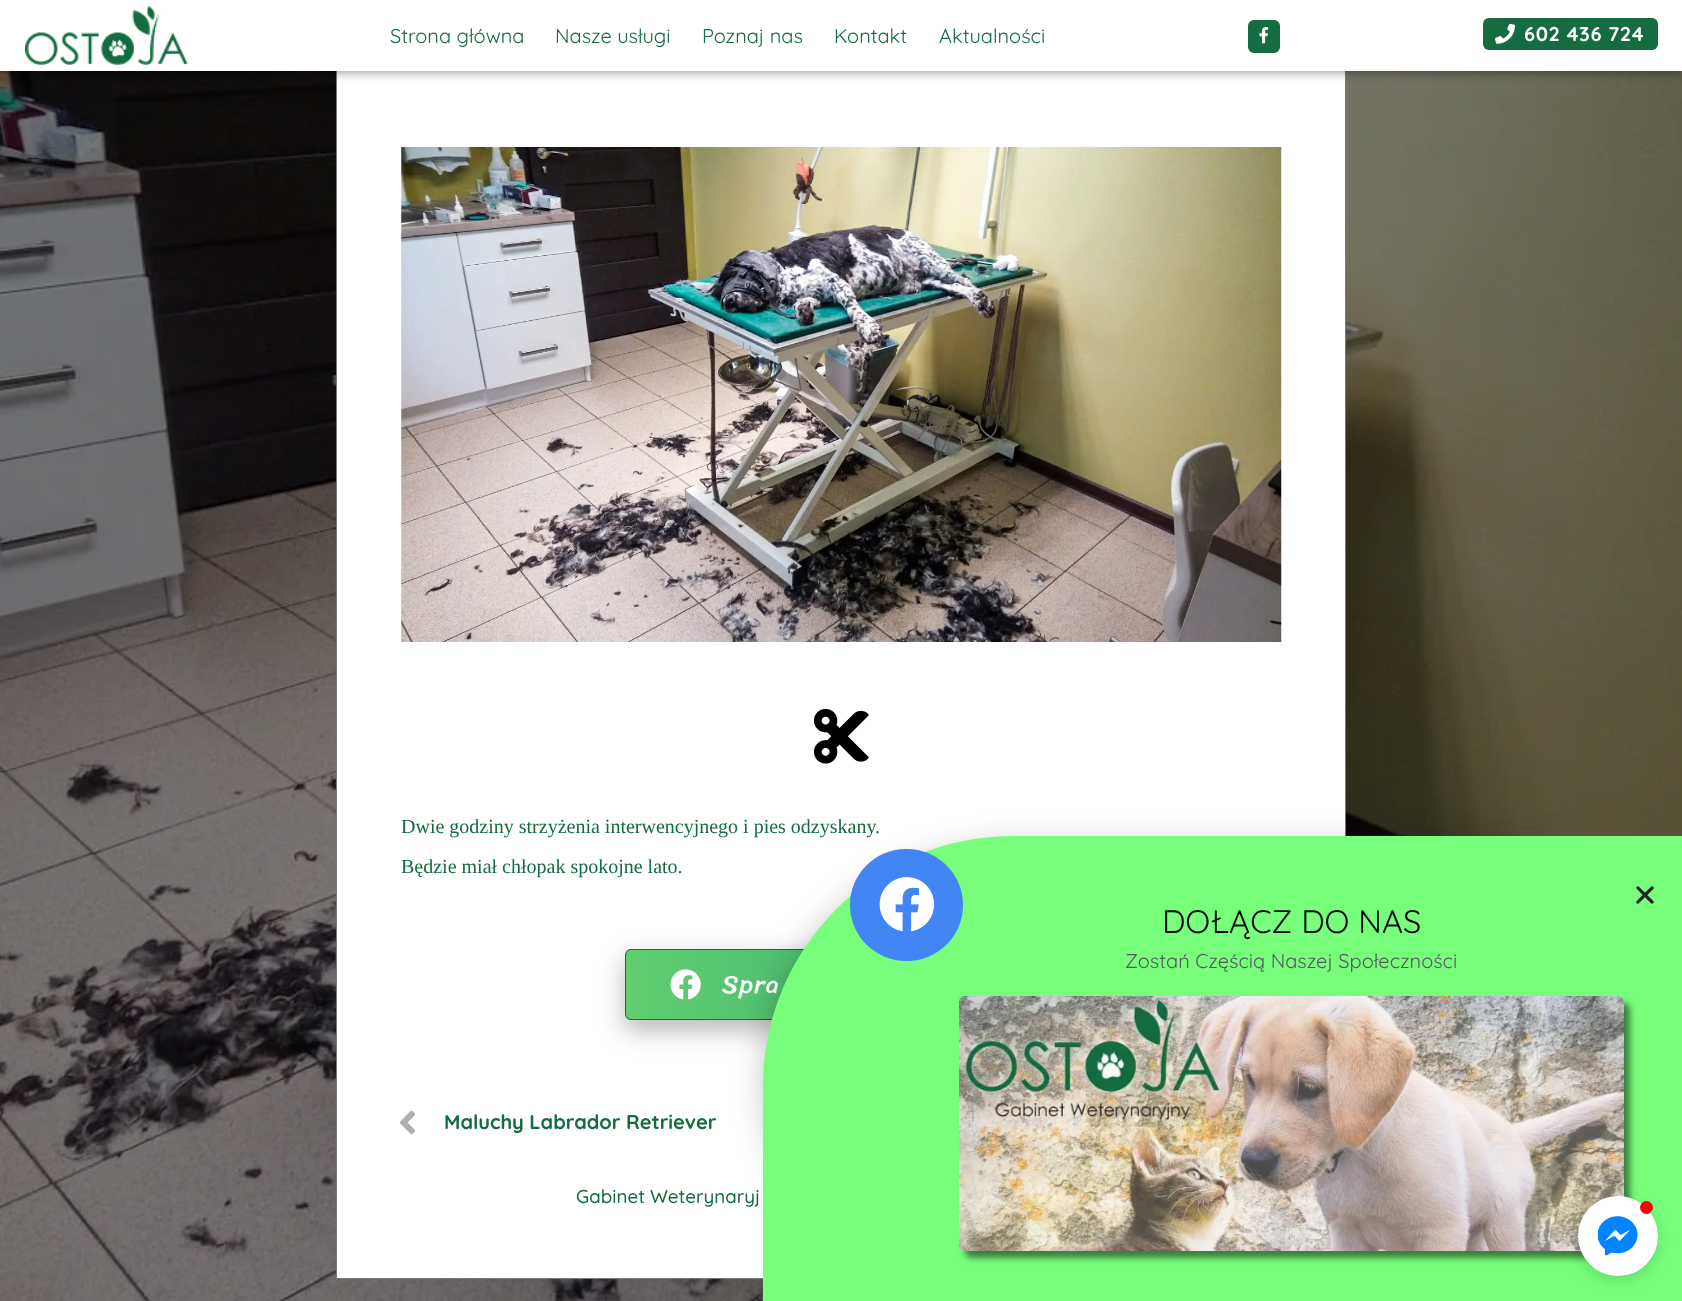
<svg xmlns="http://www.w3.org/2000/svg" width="1682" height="1301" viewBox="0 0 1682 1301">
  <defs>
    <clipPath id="clip1"><rect x="625" y="949" width="433" height="71" rx="6"/></clipPath>
    <linearGradient id="g1" gradientUnits="userSpaceOnUse" x1="626" y1="984" x2="1056" y2="984"><stop offset="0" stop-color="rgb(97,206,112)"/><stop offset="1" stop-color="rgb(56,171,113)"/></linearGradient>
  </defs>
  <rect width="100%" height="100%" fill="rgb(255,255,255)"/>
  <image x="0" y="71" width="1682" height="1230" href="pic4.png"/>
  <rect x="337" y="71" width="1008" height="1207" fill="rgb(255,255,255)"/>
  <rect x="336.5" y="-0.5" width="1009" height="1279" fill="none" stroke="rgb(122,122,122)"/>
  <rect x="0" y="0" width="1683" height="71" fill="rgba(0,0,0,0.5)" filter="blur(6px)"/>
  <rect x="0" y="0" width="1682" height="71" fill="rgb(255,255,255)"/>
  <image x="25" y="6" width="163" height="59" href="pic1.png"/>
  <g font-family="Quicksand" font-size="20" fill="rgb(20,108,64)">
    <text x="390" y="43">Strona główna</text>
    <text x="555" y="43">Nasze usługi</text>
    <text x="702" y="43">Poznaj nas</text>
    <text x="834" y="43">Kontakt</text>
    <text x="939" y="43">Aktualności</text>
  </g>
  <rect x="1249.5" y="21.5" width="29" height="30" rx="4.5" fill="rgb(20,108,64)" stroke="rgb(20,108,64)" stroke-width="3"/>
  <image x="1259" y="27" width="10" height="17" href="pic2.png"/>
  <rect x="1483" y="18" width="175" height="32" rx="6" fill="rgb(20,108,64)"/>
  <image x="1495" y="24" width="20" height="20" href="pic3.png"/>
  <text x="1524" y="41" font-family="Quicksand" font-size="20" font-weight="bold" letter-spacing="0.6" fill="rgb(255,255,255)">602 436 724</text>
  <image x="401" y="147" width="881" height="495" href="pic5.png"/>
  <image x="813" y="708" width="56" height="56" href="pic6.png"/>
  <g font-family="Liberation Serif" font-size="20" fill="rgb(20,108,64)">
    <text x="401" y="833">Dwie godziny strzyżenia interwencyjnego i pies odzyskany.</text>
    <text x="401" y="873">Będzie miał chłopak spokojne lato.</text>
  </g>
  <rect x="624" y="958" width="435" height="73" rx="8" fill="rgba(0,0,0,0.27)" filter="blur(12.5px)"/>
  <g clip-path="url(#clip1)">
    <rect x="626" y="949" width="178" height="71" fill="url(#g1)"/>
  </g>
  <rect x="625.5" y="949.5" width="432" height="70" rx="5.5" fill="none" stroke="rgb(20,108,64)"/>
  <image x="670" y="969" width="31" height="31" href="pic7.png"/>
  <text x="722" y="993" font-family="Sriracha" font-size="26" letter-spacing="1" fill="rgb(255,255,255)">Spra</text>
  <image x="400" y="1110" width="15" height="25" href="pic8.png"/>
  <text x="444" y="1129" font-family="Quicksand" font-size="20" font-weight="bold" fill="rgb(20,108,64)">Maluchy Labrador Retriever</text>
  <text x="576" y="1203" font-family="Quicksand" font-size="18.75" font-weight="500" fill="rgb(20,108,64)">Gabinet Weterynaryj</text>
  <rect x="761" y="843" width="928" height="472" rx="254" fill="rgba(0,0,0,0.2)" filter="blur(14.5px)"/>
  <path d="M1013 836H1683V1301H763V1086C763 948 875 836 1013 836Z" fill="rgb(119,255,124)"/>
  <image x="1636" y="886" width="18" height="18" href="pic9.png"/>
  <rect x="850" y="849" width="113" height="112" rx="56" fill="rgb(66,133,244)"/>
  <image x="879" y="877" width="56" height="55" href="pic10.png"/>
  <text x="1162" y="933" font-family="Quicksand" font-size="32.5" fill="rgb(0,0,0)">DOŁĄCZ DO NAS</text>
  <text x="1125" y="968" font-family="Quicksand" font-size="20" fill="rgb(84,89,95)">Zostań Częścią Naszej Społeczności</text>
  <rect x="965" y="1003" width="665" height="255" rx="6" fill="rgba(0,0,0,0.5)" filter="blur(3px)"/>
  <image x="959" y="996" width="665" height="255" href="pic11.png"/>
  <rect x="1578" y="1200" width="80" height="80" rx="40" fill="rgba(0,0,0,0.15)" filter="blur(7.5px)"/>
  <circle cx="1618" cy="1236" r="40" fill="rgb(255,255,255)"/>
  <circle cx="1646.5" cy="1207.5" r="6.5" fill="rgb(255,0,0)"/>
  <image x="1598" y="1216" width="40" height="40" href="pic12.png"/>
</svg>
